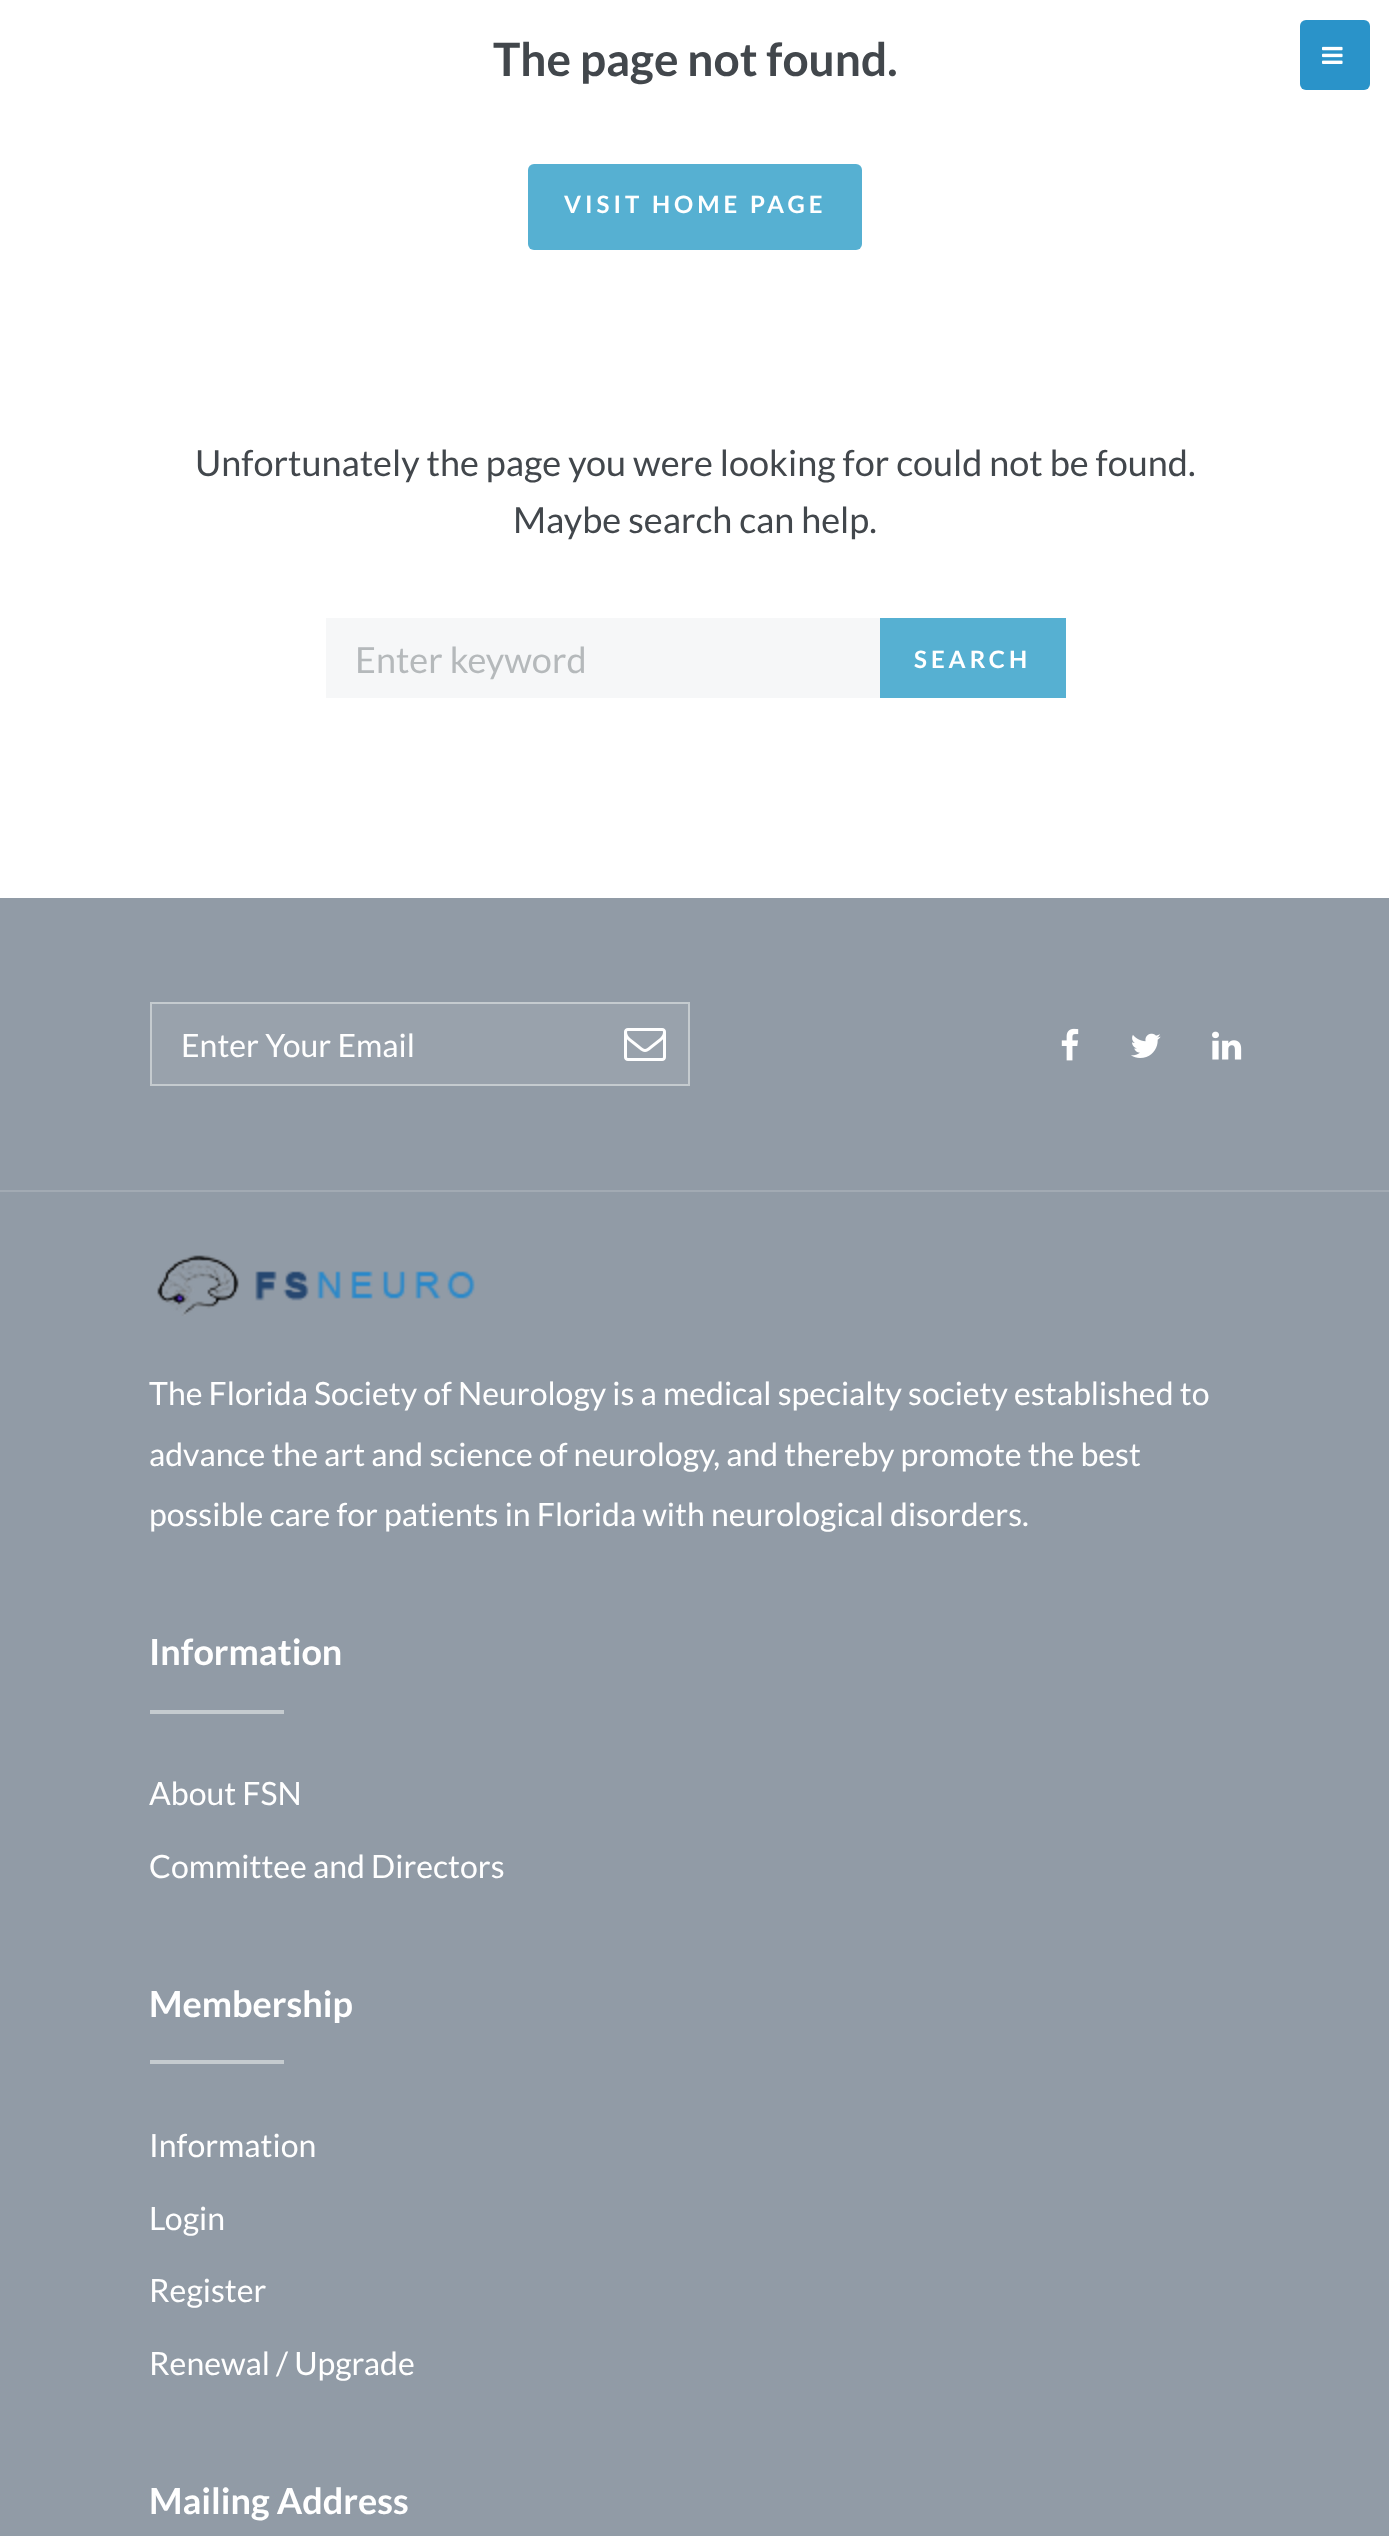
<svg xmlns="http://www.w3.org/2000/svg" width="1389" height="2536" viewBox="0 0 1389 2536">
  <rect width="100%" height="100%" fill="rgb(255,255,255)"/>
  <text x="493" y="76" font-family="Lato" font-size="46" font-weight="bold" fill="rgb(66,71,76)">The page not found.</text>
  <rect x="528" y="164" width="334" height="86" rx="6" fill="rgb(86,176,210)"/>
  <text x="564" y="213" font-family="Lato" font-size="24" font-weight="bold" letter-spacing="4" fill="rgb(255,255,255)">VISIT HOME PAGE</text>
  <g font-family="Lato" font-size="36" fill="rgb(66,71,76)">
    <text x="195" y="476">Unfortunately the page you were looking for could not be found.</text>
    <text x="513" y="533">Maybe search can help.</text>
  </g>
  <rect x="326" y="618" width="554" height="80" fill="rgb(246,247,248)"/>
  <text x="355" y="673" font-family="Lato" font-size="36" fill="rgb(181,185,187)">Enter keyword</text>
  <rect x="880" y="618" width="186" height="80" fill="rgb(86,176,210)"/>
  <text x="914" y="668" font-family="Lato" font-size="24" font-weight="bold" letter-spacing="4" fill="rgb(255,255,255)">SEARCH</text>
  <rect x="1300" y="20" width="70" height="70" rx="6" fill="rgb(42,147,201)"/>
  <image x="1322" y="46" width="21" height="18" href="pic1.png"/>
  <rect x="0" y="898" width="1389" height="292" fill="rgb(145,155,166)"/>
  <rect x="0" y="1190" width="1389" height="2" fill="rgb(162,170,179)"/>
  <rect x="151" y="1003" width="538" height="82" fill="rgb(153,162,172)" stroke="rgb(197,203,207)" stroke-width="2"/>
  <text x="181" y="1057" font-family="Lato" font-size="32" fill="rgb(255,255,255)">Enter Your Email</text>
  <image x="624" y="1028" width="42" height="33" href="pic2.png"/>
  <image x="1061" y="1028" width="18" height="33" href="pic3.png"/>
  <image x="1131" y="1033" width="30" height="25" href="pic4.png"/>
  <image x="1212" y="1031" width="30" height="29" href="pic5.png"/>
  <rect x="0" y="1192" width="1389" height="1344" fill="rgb(145,155,166)"/>
  <image x="157" y="1255" width="318" height="61" href="pic6.png"/>
  <g font-family="Lato" font-size="32" fill="rgb(255,255,255)">
    <text>
      <tspan x="149" y="1405">The Florida Society of Neurology is a medical specialty society established to</tspan>
      <tspan x="149" y="1466">advance the art and science of neurology, and thereby promote the best</tspan>
      <tspan x="149" y="1526">possible care for patients in Florida with neurological disorders.</tspan>
    </text>
  </g>
  <text x="149" y="1665" font-family="Lato" font-size="36" font-weight="bold" fill="rgb(255,255,255)">Information</text>
  <rect x="150" y="1710" width="134" height="4" fill="rgb(197,203,207)"/>
  <g font-family="Lato" font-size="32" fill="rgb(255,255,255)">
    <text x="149" y="1805">About FSN</text>
    <text x="149" y="1878">Committee and Directors</text>
  </g>
  <text x="149" y="2017" font-family="Lato" font-size="36" font-weight="bold" fill="rgb(255,255,255)">Membership</text>
  <rect x="150" y="2060" width="134" height="4" fill="rgb(197,203,207)"/>
  <g font-family="Lato" font-size="32" fill="rgb(255,255,255)">
    <text x="149" y="2157">Information</text>
    <text x="149" y="2230">Login</text>
    <text x="149" y="2302">Register</text>
    <text x="149" y="2375">Renewal / Upgrade</text>
  </g>
  <text x="149" y="2514" font-family="Lato" font-size="36" font-weight="bold" fill="rgb(255,255,255)">Mailing Address</text>
</svg>
